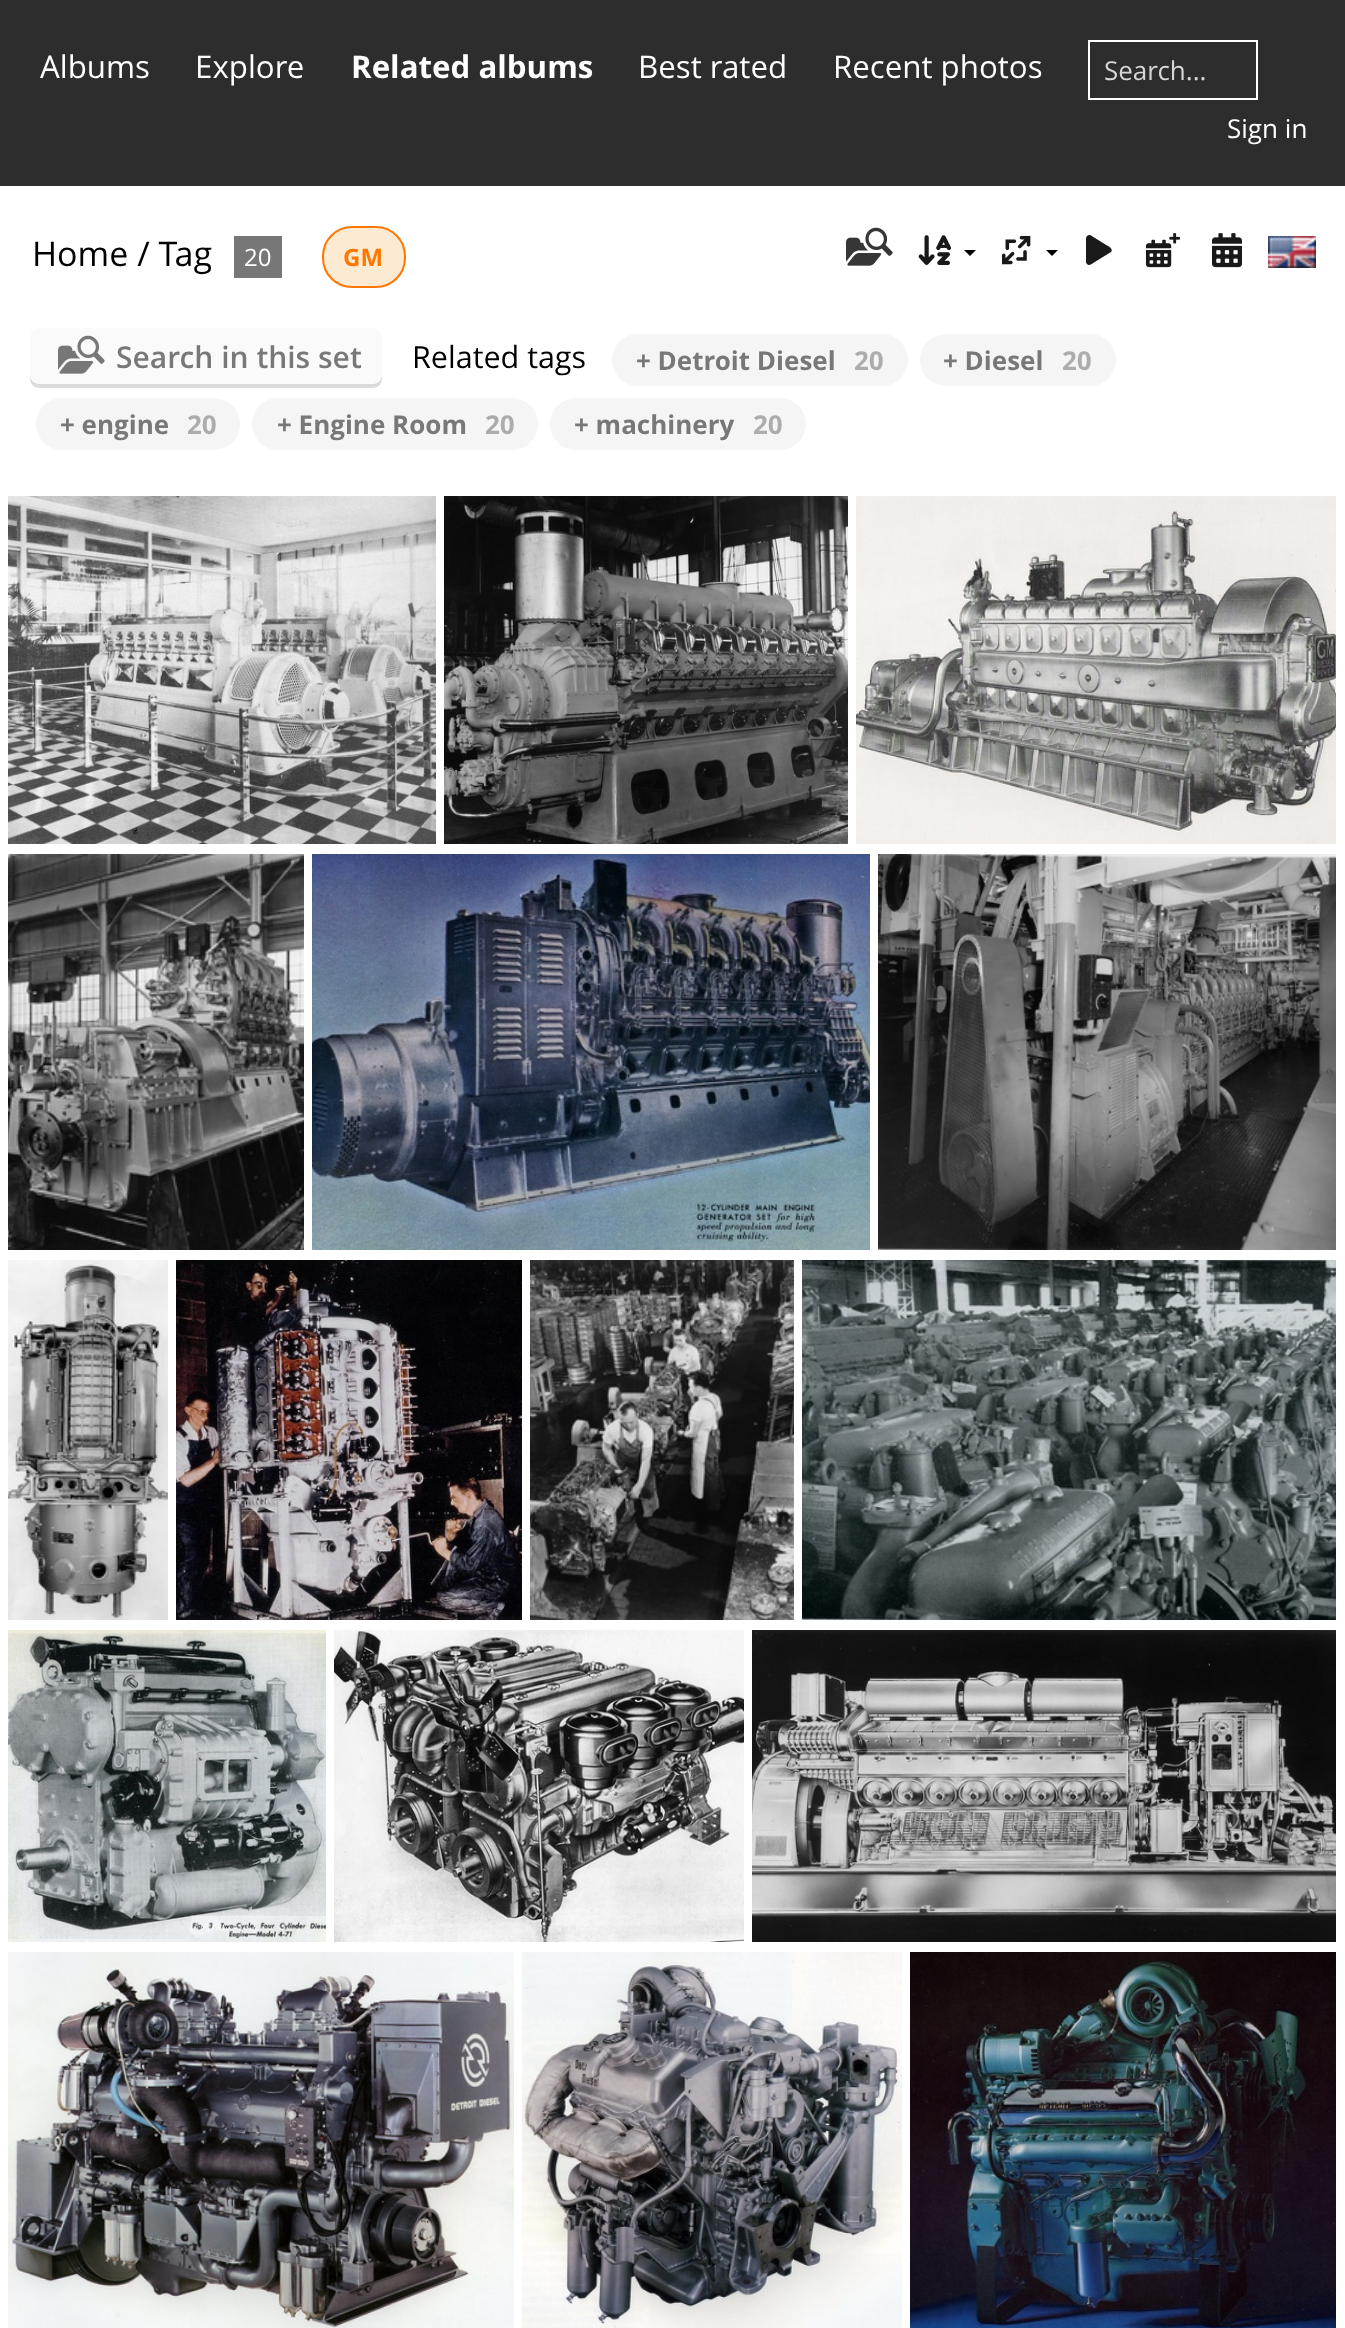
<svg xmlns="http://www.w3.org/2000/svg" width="1345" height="2328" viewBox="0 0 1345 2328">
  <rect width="100%" height="100%" fill="rgb(255,255,255)"/>
  <rect x="0" y="0" width="1345" height="186" fill="rgb(45,45,45)"/>
  <g font-family="Open Sans" font-size="31.25" fill="rgb(255,255,255)">
    <text x="40" y="78">Albums</text>
    <text x="195" y="78">Explore</text>
  </g>
  <text x="351" y="78" font-family="Open Sans" font-size="31.25" font-weight="bold" fill="rgb(255,255,255)">Related albums</text>
  <g font-family="Open Sans" font-size="31.25" fill="rgb(255,255,255)">
    <text x="638" y="78">Best rated</text>
    <text x="833" y="78">Recent photos</text>
  </g>
  <rect x="1089" y="41" width="168" height="58" fill="none" stroke="rgb(255,255,255)" stroke-width="2"/>
  <text x="1104" y="80" font-family="Open Sans" font-size="26" fill="rgb(214,214,214)">Search...</text>
  <text x="1227" y="138" font-family="Open Sans" font-size="26" fill="rgb(255,255,255)">Sign in</text>
  <text x="32" y="266" font-family="Open Sans" font-size="34" fill="rgb(0,0,0)">Home / Tag</text>
  <rect x="234" y="236" width="48" height="42" fill="rgb(119,119,119)"/>
  <text x="244" y="266" font-family="Open Sans" font-size="24" fill="rgb(255,255,255)">20</text>
  <rect x="323" y="227" width="82" height="60" rx="29" fill="rgb(252,234,210)" stroke="rgb(255,119,0)" stroke-width="2"/>
  <text x="343" y="266" font-family="Open Sans" font-size="24" font-weight="bold" fill="rgb(255,119,0)">GM</text>
  <image x="846" y="227" width="47" height="39" href="pic1.png"/>
  <image x="918" y="235" width="33" height="30" href="pic2.png"/>
  <path d="M964 250H976L970 256Z" fill="rgb(0,0,0)"/>
  <image x="1002" y="235" width="29" height="30" href="pic3.png"/>
  <path d="M1046 250H1058L1052 256Z" fill="rgb(0,0,0)"/>
  <path d="M1091 235.5C1089 234.5 1086.5 235.5 1086 238V262.5C1087.5 267 1092 264 1094 262.5L1111 252C1113.5 249 1109 246.5 1107 245.5Z" fill="rgb(26,26,26)"/>
  <image x="1146" y="233" width="34" height="35" href="pic4.png"/>
  <image x="1212" y="233" width="30" height="35" href="pic5.png"/>
  <image x="1268" y="236" width="48" height="32" href="pic6.png"/>
  <path d="M30 374V378C30 384 34 388 40 388H372C378 388 382 384 382 378V374C382 380 378 384 372 384H40C34 384 30 380 30 374Z" fill="rgb(219,219,219)"/>
  <rect x="30" y="328" width="352" height="56" rx="10" fill="rgb(250,250,250)"/>
  <image x="58" y="335" width="47" height="39" href="pic7.png"/>
  <text x="116" y="368" font-family="Open Sans" font-size="30" font-weight="600" fill="rgb(120,120,120)">Search in this set</text>
  <text x="412" y="368" font-family="Open Sans" font-size="30.5" fill="rgb(0,0,0)">Related tags</text>
  <rect x="612" y="334" width="296" height="52" rx="26" fill="rgb(245,245,245)"/>
  <text x="636" y="370" font-family="Open Sans" font-size="26" font-weight="bold" fill="rgb(120,120,120)">+ Detroit Diesel</text>
  <text x="854" y="370" font-family="Open Sans" font-size="26" font-weight="bold" fill="rgb(172,172,172)">20</text>
  <rect x="920" y="334" width="196" height="52" rx="26" fill="rgb(245,245,245)"/>
  <text x="943" y="370" font-family="Open Sans" font-size="26" font-weight="bold" fill="rgb(120,120,120)">+ Diesel</text>
  <text x="1062" y="370" font-family="Open Sans" font-size="26" font-weight="bold" fill="rgb(172,172,172)">20</text>
  <rect x="36" y="398" width="204" height="52" rx="26" fill="rgb(245,245,245)"/>
  <text x="60" y="434" font-family="Open Sans" font-size="26" font-weight="bold" fill="rgb(120,120,120)">+ engine</text>
  <text x="187" y="434" font-family="Open Sans" font-size="26" font-weight="bold" fill="rgb(172,172,172)">20</text>
  <rect x="252" y="398" width="286" height="52" rx="26" fill="rgb(245,245,245)"/>
  <text x="277" y="434" font-family="Open Sans" font-size="26" font-weight="bold" fill="rgb(120,120,120)">+ Engine Room</text>
  <text x="485" y="434" font-family="Open Sans" font-size="26" font-weight="bold" fill="rgb(172,172,172)">20</text>
  <rect x="550" y="398" width="256" height="52" rx="26" fill="rgb(245,245,245)"/>
  <text x="574" y="434" font-family="Open Sans" font-size="26" font-weight="bold" fill="rgb(120,120,120)">+ machinery</text>
  <text x="753" y="434" font-family="Open Sans" font-size="26" font-weight="bold" fill="rgb(172,172,172)">20</text>
  <image x="8" y="496" width="428" height="348" href="pic8.png"/>
  <image x="444" y="496" width="404" height="348" href="pic9.png"/>
  <image x="856" y="496" width="480" height="348" href="pic10.png"/>
  <image x="8" y="854" width="296" height="396" href="pic11.png"/>
  <image x="312" y="854" width="558" height="396" href="pic12.png"/>
  <image x="878" y="854" width="458" height="396" href="pic13.png"/>
  <image x="8" y="1260" width="160" height="360" href="pic14.png"/>
  <image x="176" y="1260" width="346" height="360" href="pic15.png"/>
  <image x="530" y="1260" width="264" height="360" href="pic16.png"/>
  <image x="802" y="1260" width="534" height="360" href="pic17.png"/>
  <image x="8" y="1630" width="318" height="312" href="pic18.png"/>
  <image x="334" y="1630" width="410" height="312" href="pic19.png"/>
  <image x="752" y="1630" width="584" height="312" href="pic20.png"/>
  <image x="8" y="1952" width="506" height="376" href="pic21.png"/>
  <image x="522" y="1952" width="380" height="376" href="pic22.png"/>
  <image x="910" y="1952" width="426" height="376" href="pic23.png"/>
</svg>
